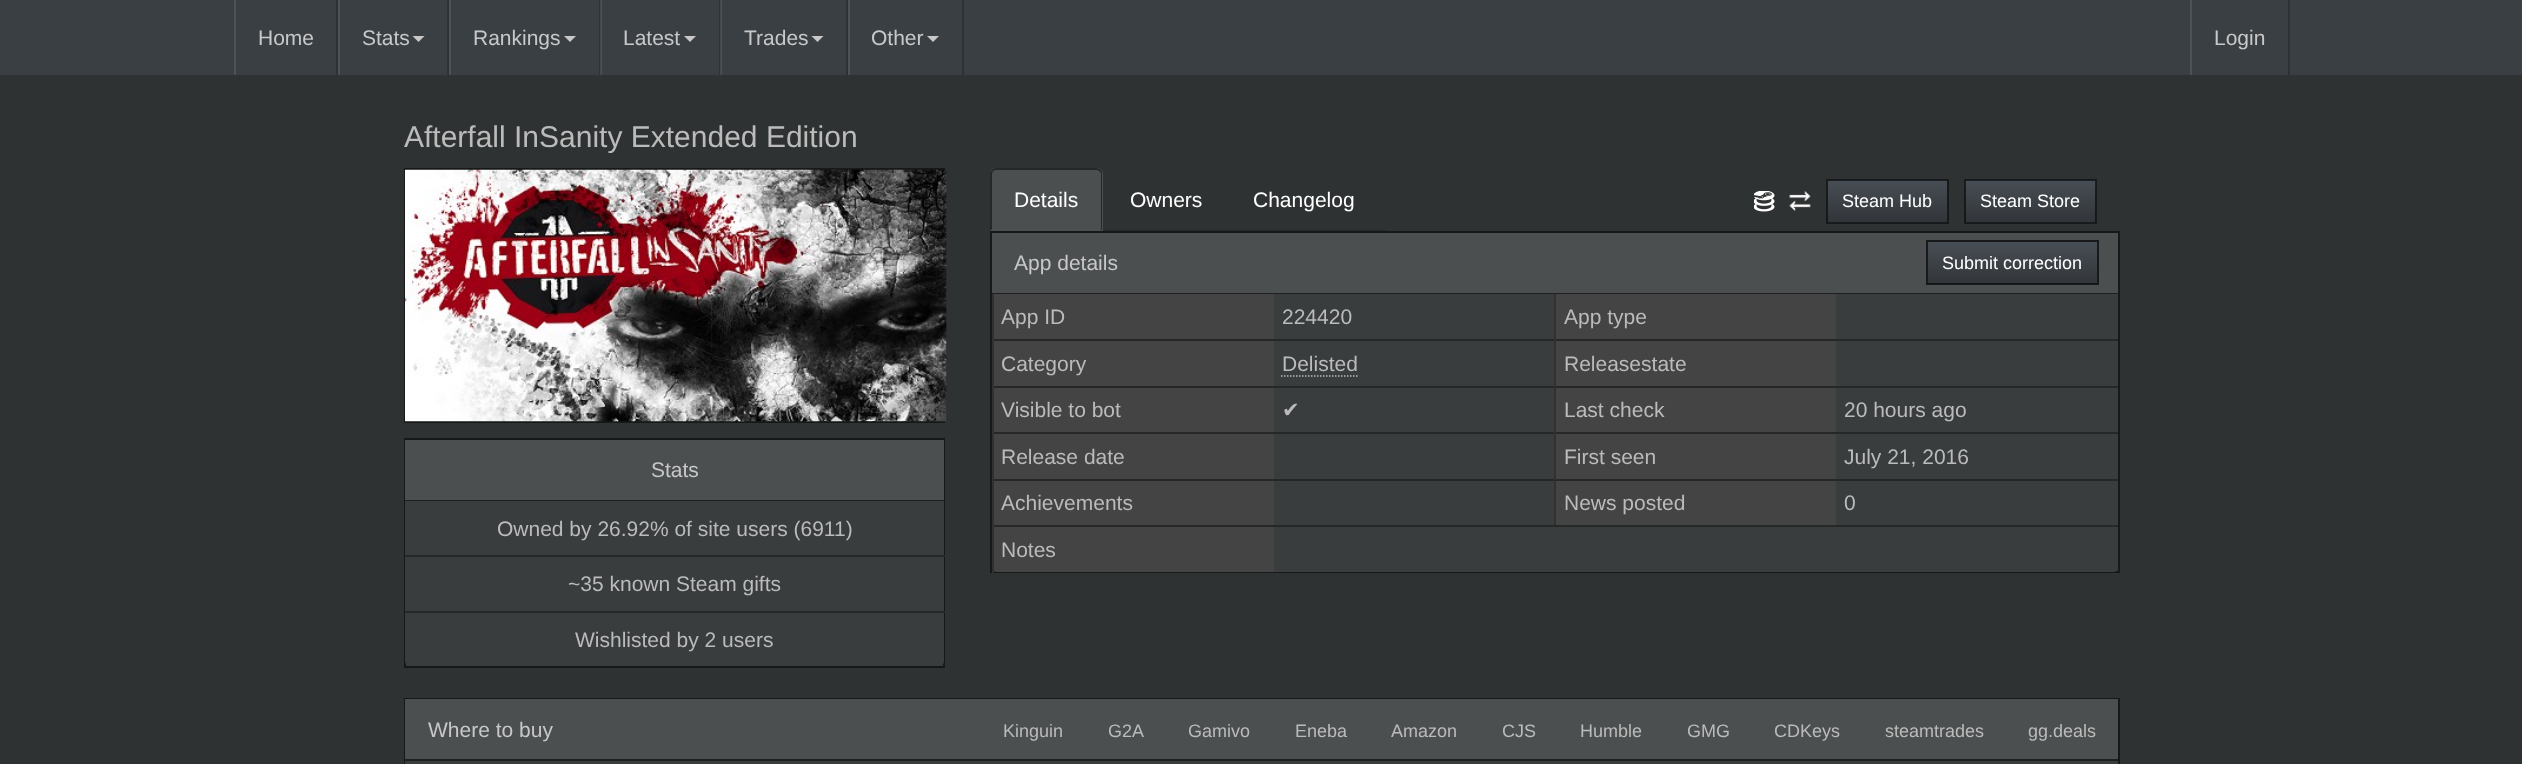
<svg xmlns="http://www.w3.org/2000/svg" width="2522" height="764" viewBox="0 0 2522 764">
  <defs>
    <clipPath id="clip1"><rect x="404" y="120" width="1671" height="33"/></clipPath>
    <linearGradient id="g1" gradientUnits="userSpaceOnUse" x1="1887" y1="180" x2="1887" y2="222"><stop offset="0" stop-color="rgb(72,78,85)"/><stop offset="0.6" stop-color="rgb(58,63,68)"/><stop offset="1" stop-color="rgb(49,53,57)"/></linearGradient>
    <linearGradient id="g2" gradientUnits="userSpaceOnUse" x1="2030" y1="180" x2="2030" y2="222"><stop offset="0" stop-color="rgb(72,78,85)"/><stop offset="0.6" stop-color="rgb(58,63,68)"/><stop offset="1" stop-color="rgb(49,53,57)"/></linearGradient>
    <linearGradient id="g3" gradientUnits="userSpaceOnUse" x1="2012" y1="242" x2="2012" y2="284"><stop offset="0" stop-color="rgb(72,78,85)"/><stop offset="0.6" stop-color="rgb(58,63,68)"/><stop offset="1" stop-color="rgb(49,53,57)"/></linearGradient>
  </defs>
  <rect width="100%" height="100%" fill="rgb(47,50,50)"/>
  <rect x="0" y="0" width="2522" height="75" fill="rgb(58,63,68)"/>
  <rect x="721" y="0" width="1" height="75" fill="rgb(78,82,87)"/>
  <rect x="601" y="0" width="1" height="75" fill="rgb(78,82,87)"/>
  <rect x="336" y="0" width="2" height="75" fill="rgb(46,50,54)"/>
  <rect x="234" y="0" width="2" height="75" fill="rgb(78,82,87)"/>
  <text x="258" y="45" font-family="Liberation Sans" font-size="21" fill="rgb(200,200,200)">Home</text>
  <rect x="447" y="0" width="2" height="75" fill="rgb(46,50,54)"/>
  <rect x="338" y="0" width="2" height="75" fill="rgb(78,82,87)"/>
  <text x="362" y="45" font-family="Liberation Sans" font-size="21" fill="rgb(200,200,200)">Stats</text>
  <path d="M412.5 36H424.5L418.5 42Z" fill="rgb(200,200,200)"/>
  <rect x="599" y="0" width="1" height="75" fill="rgb(46,50,54)"/>
  <rect x="600" y="0" width="1" height="75" fill="rgb(67,71,74)"/>
  <rect x="449" y="0" width="2" height="75" fill="rgb(78,82,87)"/>
  <text x="473" y="45" font-family="Liberation Sans" font-size="21" fill="rgb(200,200,200)">Rankings</text>
  <path d="M564 36H576L570 42Z" fill="rgb(200,200,200)"/>
  <rect x="719" y="0" width="1" height="75" fill="rgb(46,50,54)"/>
  <rect x="720" y="0" width="1" height="75" fill="rgb(67,71,74)"/>
  <text x="623" y="45" font-family="Liberation Sans" font-size="21" fill="rgb(200,200,200)">Latest</text>
  <path d="M684 36H696L690 42Z" fill="rgb(200,200,200)"/>
  <rect x="846" y="0" width="2" height="75" fill="rgb(46,50,54)"/>
  <text x="744" y="45" font-family="Liberation Sans" font-size="21" fill="rgb(200,200,200)">Trades</text>
  <path d="M811.5 36H823.5L817.5 42Z" fill="rgb(200,200,200)"/>
  <rect x="962" y="0" width="2" height="75" fill="rgb(46,50,54)"/>
  <rect x="848" y="0" width="2" height="75" fill="rgb(78,82,87)"/>
  <text x="871" y="45" font-family="Liberation Sans" font-size="21" fill="rgb(200,200,200)">Other</text>
  <path d="M927 36H939L933 42Z" fill="rgb(200,200,200)"/>
  <rect x="2288" y="0" width="2" height="75" fill="rgb(46,50,54)"/>
  <rect x="2190" y="0" width="2" height="75" fill="rgb(78,82,87)"/>
  <text x="2214" y="45" font-family="Liberation Sans" font-size="21" fill="rgb(200,200,200)">Login</text>
  <g clip-path="url(#clip1)">
    <text x="404" y="147" font-family="Liberation Sans" font-size="30" fill="rgb(187,187,187)">Afterfall InSanity Extended Edition</text>
  </g>
  <rect x="1103" y="230" width="283" height="1" fill="rgb(38,40,40)"/>
  <path d="M996 168H1097C1100.5 168 1103 170.5 1103 174V231H990V174C990 170.5 992.5 168 996 168Z" fill="rgb(75,79,79)"/>
  <path d="M996 168C994 168 993 169 992 170L993 171L996 170H1097L1099 171L1101 170C1100 169 1098 168 1096 168Z" fill="rgb(38,40,40)"/>
  <path d="M1101 170C1102 171 1102 173 1102 174V230H1101V173L1099 171Z" fill="rgb(38,40,40)"/>
  <path d="M990 231L992 229V174L993 171L992 170C991 171 990 172 990 174Z" fill="rgb(38,40,40)"/>
  <g font-family="Liberation Sans" font-size="21" fill="rgb(255,255,255)">
    <text x="1014" y="207">Details</text>
    <text x="1130" y="207">Owners</text>
    <text x="1253" y="207">Changelog</text>
  </g>
  <image x="1754" y="191" width="21" height="21" href="pic1.png"/>
  <image x="1789" y="191" width="22" height="20" href="pic2.png"/>
  <rect x="1826" y="179" width="123" height="45" fill="rgb(58,63,68)"/>
  <rect x="1827" y="180" width="120" height="42" fill="url(#g1)"/>
  <rect x="1827" y="180" width="121" height="43" fill="none" stroke="rgba(0,0,0,0.6)" stroke-width="2"/>
  <text x="1842" y="207" font-family="Liberation Sans" font-size="18" fill="rgb(255,255,255)">Steam Hub</text>
  <rect x="1964" y="179" width="133" height="45" fill="rgb(58,63,68)"/>
  <rect x="1965" y="180" width="131" height="42" fill="url(#g2)"/>
  <rect x="1965" y="180" width="131" height="43" fill="none" stroke="rgba(0,0,0,0.6)" stroke-width="2"/>
  <text x="1980" y="207" font-family="Liberation Sans" font-size="18" fill="rgb(255,255,255)">Steam Store</text>
  <rect x="405" y="169" width="539" height="253" fill="none" stroke="rgb(23,24,24)" stroke-width="2"/>
  <image x="405" y="169" width="542" height="253" href="pic3.png"/>
  <rect x="406" y="664" width="537" height="2" fill="rgb(57,61,61)"/>
  <rect x="405" y="439" width="539" height="228" fill="none" stroke="rgb(23,24,24)" stroke-width="2"/>
  <rect x="405" y="440" width="539" height="61" fill="rgb(75,79,79)"/>
  <rect x="405" y="500" width="539" height="1" fill="rgba(0,0,0,0.6)"/>
  <text x="651" y="477" font-family="Liberation Sans" font-size="21" fill="rgb(200,200,200)">Stats</text>
  <path d="M405 501H944V661C944 664 942 666 939 666H410C407 666 405 664 405 661Z" fill="rgb(57,61,61)"/>
  <text x="497" y="536" font-family="Liberation Sans" font-size="21" fill="rgb(187,187,187)">Owned by 26.92% of site users (6911)</text>
  <rect x="405" y="555" width="540" height="2" fill="rgb(38,40,40)"/>
  <text x="568" y="591" font-family="Liberation Sans" font-size="21" fill="rgb(187,187,187)">~35 known Steam gifts</text>
  <rect x="405" y="611" width="540" height="2" fill="rgb(38,40,40)"/>
  <text x="575" y="647" font-family="Liberation Sans" font-size="21" fill="rgb(187,187,187)">Wishlisted by 2 users</text>
  <rect x="2116" y="567" width="2" height="4" fill="rgb(57,61,61)"/>
  <rect x="991" y="232" width="1128" height="340" fill="none" stroke="rgb(23,24,24)" stroke-width="2"/>
  <rect x="992" y="233" width="1126" height="60" fill="rgb(75,79,79)"/>
  <rect x="992" y="293" width="1126" height="1" fill="rgb(30,32,32)"/>
  <text x="1014" y="270" font-family="Liberation Sans" font-size="21" fill="rgb(200,200,200)">App details</text>
  <rect x="1926" y="240" width="173" height="45" fill="rgb(58,63,68)"/>
  <rect x="1928" y="242" width="169" height="42" fill="url(#g3)"/>
  <rect x="1927" y="241" width="171" height="43" fill="none" stroke="rgba(0,0,0,0.6)" stroke-width="2"/>
  <text x="1942" y="269" font-family="Liberation Sans" font-size="18" fill="rgb(255,255,255)">Submit correction</text>
  <rect x="1274" y="294" width="844" height="231" fill="rgb(57,61,61)"/>
  <rect x="994" y="294" width="280" height="45" fill="rgb(68,68,68)"/>
  <g font-family="Liberation Sans" font-size="21" fill="rgb(187,187,187)">
    <text x="1001" y="324">App ID</text>
    <text x="1282" y="324">224420</text>
  </g>
  <rect x="1556" y="294" width="280" height="45" fill="rgb(68,68,68)"/>
  <rect x="1554" y="339" width="564" height="2" fill="rgb(38,40,40)"/>
  <rect x="1554" y="386" width="564" height="2" fill="rgb(38,40,40)"/>
  <rect x="1554" y="432" width="564" height="2" fill="rgb(38,40,40)"/>
  <rect x="1554" y="479" width="564" height="2" fill="rgb(38,40,40)"/>
  <rect x="1554" y="479" width="2" height="48" fill="rgb(49,49,49)"/>
  <rect x="992" y="479" width="564" height="2" fill="rgb(38,40,40)"/>
  <rect x="1554" y="432" width="2" height="48" fill="rgb(49,49,49)"/>
  <rect x="992" y="432" width="564" height="2" fill="rgb(38,40,40)"/>
  <rect x="1554" y="386" width="2" height="48" fill="rgb(49,49,49)"/>
  <rect x="992" y="386" width="564" height="2" fill="rgb(38,40,40)"/>
  <rect x="1554" y="339" width="2" height="48" fill="rgb(49,49,49)"/>
  <rect x="992" y="339" width="564" height="2" fill="rgb(38,40,40)"/>
  <rect x="1554" y="294" width="2" height="47" fill="rgb(49,49,49)"/>
  <text x="1564" y="324" font-family="Liberation Sans" font-size="21" fill="rgb(187,187,187)">App type</text>
  <rect x="994" y="341" width="280" height="45" fill="rgb(68,68,68)"/>
  <rect x="992" y="339" width="2" height="2" fill="rgb(49,49,49)"/>
  <g font-family="Liberation Sans" font-size="21" fill="rgb(187,187,187)">
    <text x="1001" y="371">Category</text>
    <text x="1282" y="371">Delisted</text>
  </g>
  <path d="M1281 376H1357.5" fill="none" stroke="rgb(187,187,187)" stroke-width="1.5" stroke-dasharray="1.5 1.5"/>
  <rect x="1556" y="341" width="280" height="45" fill="rgb(68,68,68)"/>
  <text x="1564" y="371" font-family="Liberation Sans" font-size="21" fill="rgb(187,187,187)">Releasestate</text>
  <rect x="994" y="388" width="280" height="44" fill="rgb(68,68,68)"/>
  <rect x="992" y="386" width="2" height="2" fill="rgb(49,49,49)"/>
  <text x="1001" y="417" font-family="Liberation Sans" font-size="21" fill="rgb(187,187,187)">Visible to bot</text>
  <text x="1282" y="417" font-family="DejaVu Sans" font-size="21" fill="rgb(187,187,187)">✔</text>
  <rect x="1556" y="388" width="280" height="44" fill="rgb(68,68,68)"/>
  <g font-family="Liberation Sans" font-size="21" fill="rgb(187,187,187)">
    <text x="1564" y="417">Last check</text>
    <text x="1844" y="417">20 hours ago</text>
  </g>
  <rect x="994" y="434" width="280" height="45" fill="rgb(68,68,68)"/>
  <rect x="992" y="432" width="2" height="2" fill="rgb(49,49,49)"/>
  <text x="1001" y="464" font-family="Liberation Sans" font-size="21" fill="rgb(187,187,187)">Release date</text>
  <rect x="1556" y="434" width="280" height="45" fill="rgb(68,68,68)"/>
  <g font-family="Liberation Sans" font-size="21" fill="rgb(187,187,187)">
    <text x="1564" y="464">First seen</text>
    <text x="1844" y="464">July 21, 2016</text>
  </g>
  <rect x="994" y="481" width="280" height="44" fill="rgb(68,68,68)"/>
  <rect x="992" y="479" width="2" height="2" fill="rgb(49,49,49)"/>
  <text x="1001" y="510" font-family="Liberation Sans" font-size="21" fill="rgb(187,187,187)">Achievements</text>
  <rect x="1556" y="481" width="280" height="44" fill="rgb(68,68,68)"/>
  <g font-family="Liberation Sans" font-size="21" fill="rgb(187,187,187)">
    <text x="1564" y="510">News posted</text>
    <text x="1844" y="510">0</text>
  </g>
  <path d="M992 525H2118V567C2118 570 2116 572 2113 572H997C994 572 992 570 992 567Z" fill="rgb(57,61,61)"/>
  <rect x="992" y="525" width="1126" height="2" fill="rgb(38,40,40)"/>
  <path d="M993 527H1274V572H998C995 572 993 570 993 567Z" fill="rgb(68,68,68)"/>
  <rect x="992" y="525" width="2" height="48" fill="rgb(49,49,49)"/>
  <text x="1001" y="557" font-family="Liberation Sans" font-size="21" fill="rgb(187,187,187)">Notes</text>
  <rect x="405" y="699" width="1714" height="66" fill="none" stroke="rgb(23,24,24)" stroke-width="2"/>
  <rect x="405" y="699" width="1713" height="60" fill="rgb(75,79,79)"/>
  <rect x="405" y="759" width="1713" height="2" fill="rgb(30,32,32)"/>
  <text x="428" y="737" font-family="Liberation Sans" font-size="21" fill="rgb(200,200,200)">Where to buy</text>
  <g font-family="Liberation Sans" font-size="18" fill="rgb(187,187,187)">
    <text x="1003" y="737">Kinguin</text>
    <text x="1108" y="737">G2A</text>
    <text x="1188" y="737">Gamivo</text>
    <text x="1295" y="737">Eneba</text>
    <text x="1391" y="737">Amazon</text>
    <text x="1502" y="737">CJS</text>
    <text x="1580" y="737">Humble</text>
    <text x="1687" y="737">GMG</text>
    <text x="1774" y="737">CDKeys</text>
    <text x="1885" y="737">steamtrades</text>
    <text x="2028" y="737">gg.deals</text>
  </g>
  <rect x="405" y="761" width="1713" height="3" fill="rgb(57,61,61)"/>
</svg>
